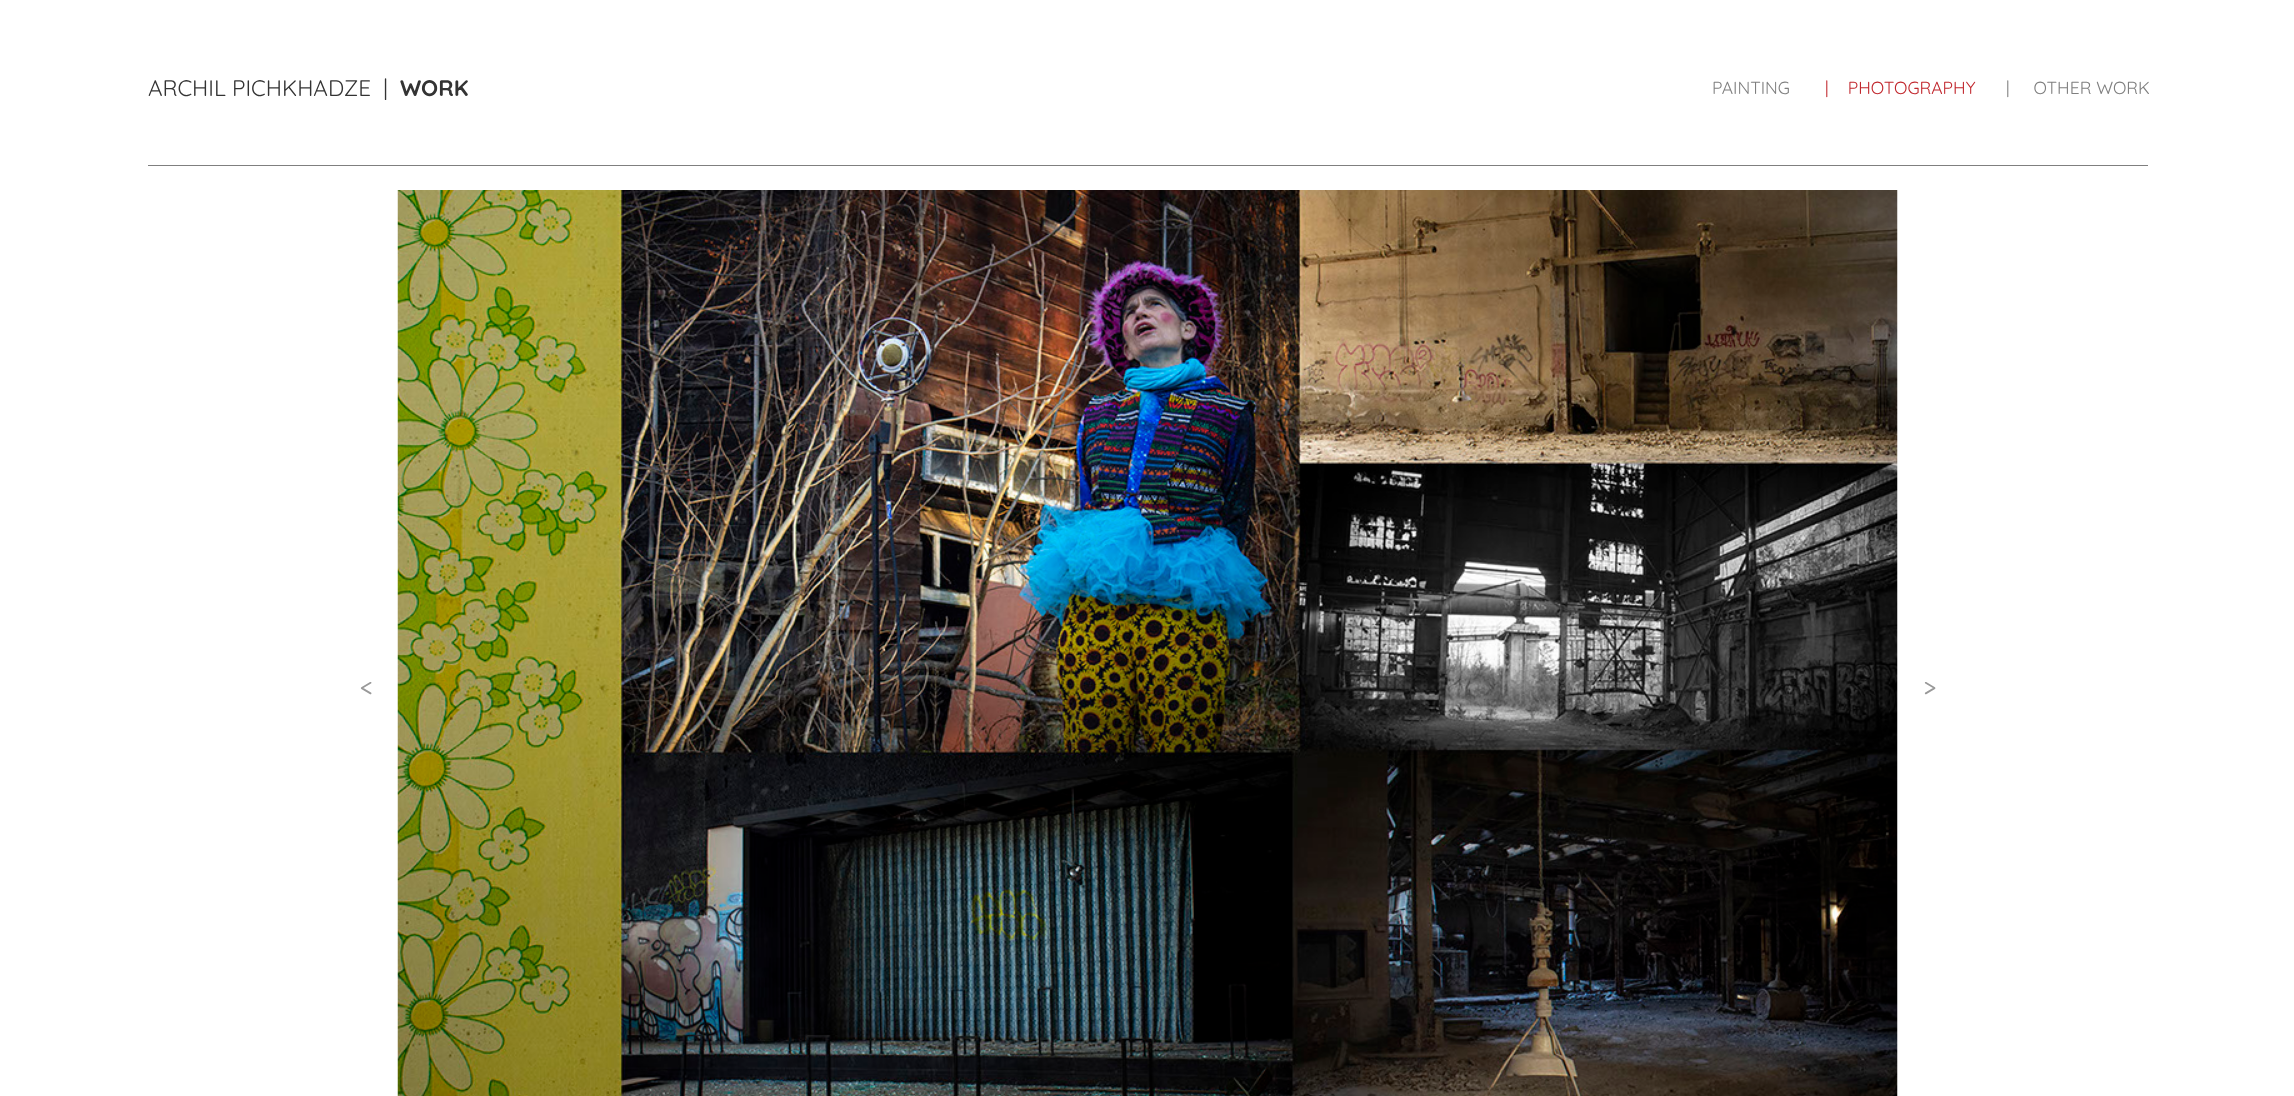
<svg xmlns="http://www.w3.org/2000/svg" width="2294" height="1096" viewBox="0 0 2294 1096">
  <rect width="100%" height="100%" fill="rgb(255,255,255)"/>
  <text x="148" y="96" font-family="Quicksand" font-size="22.5" fill="rgb(51,51,51)" xml:space="preserve">ARCHIL PICHKHADZE  |</text>
  <text x="400" y="96" font-family="Quicksand" font-size="22.5" font-weight="bold" fill="rgb(51,51,51)">WORK</text>
  <text x="1712" y="94" font-family="Quicksand" font-size="17.5" fill="rgb(127,127,127)">PAINTING</text>
  <text x="1825" y="94" font-family="Quicksand" font-size="17.5" fill="rgb(193,39,45)" xml:space="preserve">|    PHOTOGRAPHY</text>
  <text x="2006" y="94" font-family="Quicksand" font-size="17.5" fill="rgb(127,127,127)" xml:space="preserve">|     OTHER WORK</text>
  <rect x="148" y="165" width="2000" height="1" fill="rgb(127,127,127)"/>
  <text x="360" y="696" font-family="Comfortaa" font-size="22.5" fill="rgb(153,153,153)">&lt;</text>
  <image x="397" y="190" width="1501" height="906" href="pic1.png"/>
  <text x="1924" y="696" font-family="Comfortaa" font-size="22.5" fill="rgb(153,153,153)">&gt;</text>
</svg>
